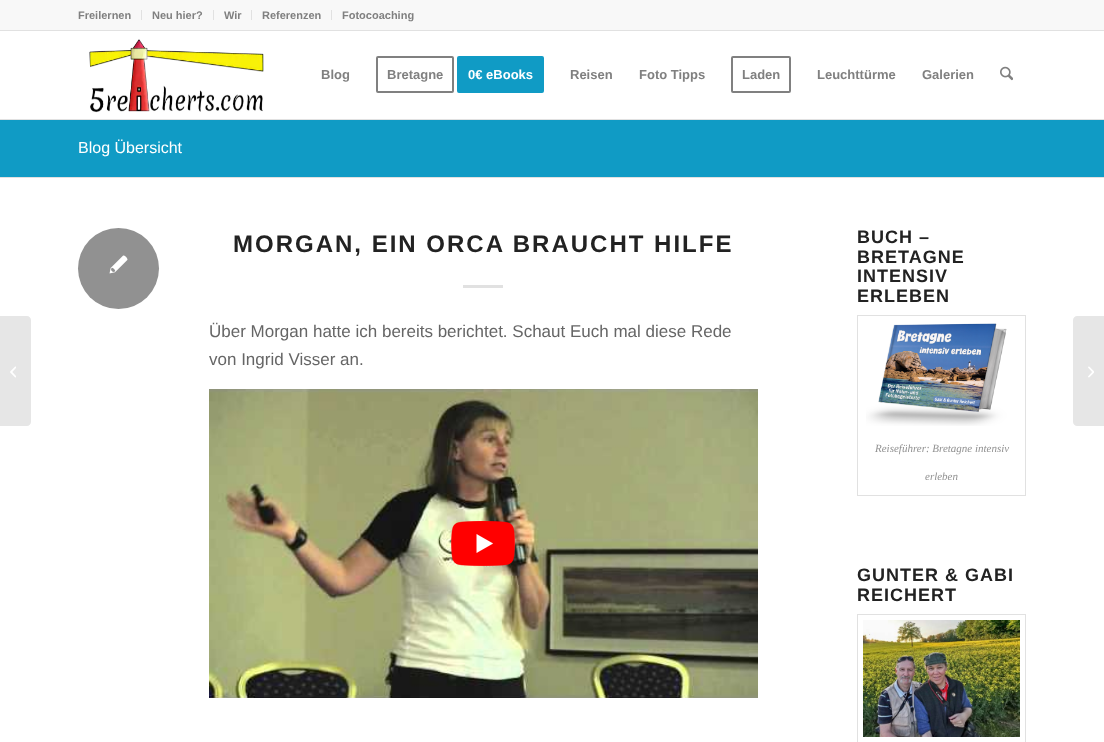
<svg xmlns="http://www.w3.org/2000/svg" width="1104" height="742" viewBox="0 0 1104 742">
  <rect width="100%" height="100%" fill="rgb(255,255,255)"/>
  <rect x="0" y="0" width="1104" height="30" fill="rgb(248,248,248)"/>
  <rect x="0" y="30" width="1104" height="1" fill="rgb(225,225,225)"/>
  <rect x="141" y="10" width="1" height="10" fill="rgb(225,225,225)"/>
  <text x="78" y="19" font-family="Liberation Sans" font-size="11" font-weight="bold" fill="rgb(128,128,128)">Freilernen</text>
  <rect x="213" y="10" width="1" height="10" fill="rgb(225,225,225)"/>
  <text x="152" y="19" font-family="Liberation Sans" font-size="11" font-weight="bold" fill="rgb(128,128,128)">Neu hier?</text>
  <rect x="251" y="10" width="1" height="10" fill="rgb(225,225,225)"/>
  <text x="224" y="19" font-family="Liberation Sans" font-size="11" font-weight="bold" fill="rgb(128,128,128)">Wir</text>
  <rect x="331" y="10" width="1" height="10" fill="rgb(225,225,225)"/>
  <g font-family="Liberation Sans" font-size="11" font-weight="bold" fill="rgb(128,128,128)">
    <text x="262" y="19">Referenzen</text>
    <text x="342" y="19">Fotocoaching</text>
  </g>
  <rect x="0" y="119" width="1104" height="1" fill="rgb(225,225,225)"/>
  <image x="89" y="39" width="175" height="74" href="pic1.png"/>
  <text x="321" y="79" font-family="Liberation Sans" font-size="13" font-weight="bold" fill="rgb(128,128,128)">Blog</text>
  <rect x="377" y="57" width="76" height="35" rx="1" fill="none" stroke="rgb(128,128,128)" stroke-width="2"/>
  <text x="387" y="79" font-family="Liberation Sans" font-size="13" font-weight="bold" fill="rgb(128,128,128)">Bretagne</text>
  <rect x="458" y="57" width="85" height="35" rx="1" fill="rgb(16,155,197)" stroke="rgb(16,155,197)" stroke-width="2"/>
  <text x="468" y="79" font-family="Liberation Sans" font-size="13" font-weight="bold" fill="rgb(255,255,255)">0€ eBooks</text>
  <g font-family="Liberation Sans" font-size="13" font-weight="bold" fill="rgb(128,128,128)">
    <text x="570" y="79">Reisen</text>
    <text x="639" y="79">Foto Tipps</text>
  </g>
  <rect x="732" y="57" width="58" height="35" rx="1" fill="none" stroke="rgb(128,128,128)" stroke-width="2"/>
  <g font-family="Liberation Sans" font-size="13" font-weight="bold" fill="rgb(128,128,128)">
    <text x="742" y="79">Laden</text>
    <text x="817" y="79">Leuchttürme</text>
    <text x="922" y="79">Galerien</text>
  </g>
  <image x="1000" y="66" width="13" height="15" href="pic2.png"/>
  <path d="M0 316H27C29 316 31 318 31 320V422C31 424 29 426 27 426H0Z" fill="rgb(230,230,230)"/>
  <image x="10" y="366" width="6" height="12" href="pic3.png"/>
  <rect x="0" y="120" width="1104" height="57" fill="rgb(16,155,197)"/>
  <text x="78" y="153" font-family="Liberation Sans" font-size="16" fill="rgb(255,255,255)">Blog Übersicht</text>
  <rect x="0" y="177" width="1104" height="1" fill="rgb(225,225,225)"/>
  <circle cx="118.5" cy="268.5" r="40.5" fill="rgb(145,145,145)"/>
  <image x="109" y="255" width="19" height="19" href="pic4.png"/>
  <text x="233" y="252" font-family="Liberation Sans" font-size="24" font-weight="bold" letter-spacing="2" fill="rgb(34,34,34)">MORGAN, EIN ORCA BRAUCHT HILFE</text>
  <rect x="463" y="285" width="40" height="3" fill="rgb(225,225,225)"/>
  <g font-family="Liberation Sans" font-size="17" fill="rgb(102,102,102)">
    <text>
      <tspan x="209" y="337">Über Morgan hatte ich bereits berichtet. Schaut Euch mal diese Rede</tspan>
      <tspan x="209" y="365">von Ingrid Visser an.</tspan>
    </text>
  </g>
  <image x="209" y="389" width="549" height="309" href="pic5.png"/>
  <image x="451" y="521" width="64" height="45" href="pic6.png"/>
  <g font-family="Liberation Sans" font-size="18" font-weight="bold" letter-spacing="1" fill="rgb(34,34,34)">
    <text>
      <tspan x="857" y="243">BUCH –</tspan>
      <tspan x="857" y="263">BRETAGNE</tspan>
      <tspan x="857" y="282">INTENSIV</tspan>
      <tspan x="857" y="302">ERLEBEN</tspan>
    </text>
  </g>
  <rect x="857.5" y="315.5" width="168" height="180" fill="none" stroke="rgb(225,225,225)"/>
  <image x="866" y="323" width="141" height="103" href="pic7.png"/>
  <g font-family="Liberation Serif" font-size="11" font-style="italic" fill="rgb(145,145,145)">
    <text x="875" y="452">Reiseführer: Bretagne intensiv</text>
    <text x="925" y="480">erleben</text>
  </g>
  <g font-family="Liberation Sans" font-size="18" font-weight="bold" letter-spacing="1" fill="rgb(34,34,34)">
    <text>
      <tspan x="857" y="581">GUNTER &amp; GABI</tspan>
      <tspan x="857" y="601">REICHERT</tspan>
    </text>
  </g>
  <rect x="857.5" y="614.5" width="168" height="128" fill="none" stroke="rgb(225,225,225)"/>
  <image x="863" y="620" width="157" height="117" href="pic8.png"/>
  <path d="M1077 316H1104V426H1077C1075 426 1073 424 1073 422V320C1073 318 1075 316 1077 316Z" fill="rgb(230,230,230)"/>
  <image x="1088" y="366" width="6" height="12" href="pic9.png"/>
</svg>
